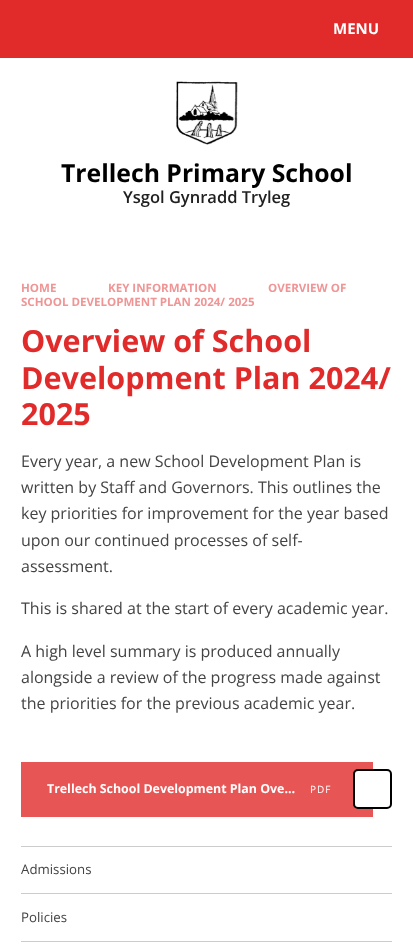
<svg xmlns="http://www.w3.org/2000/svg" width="413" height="950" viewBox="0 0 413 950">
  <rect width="100%" height="100%" fill="rgb(255,255,255)"/>
  <rect x="0" y="0" width="413" height="58" fill="rgb(225,43,43)"/>
  <text x="333" y="34" font-family="Open Sans" font-size="15" font-weight="bold" fill="rgb(255,255,255)">MENU</text>
  <image x="176" y="81" width="62" height="64" href="pic1.png"/>
  <text x="61" y="182" font-family="Open Sans" font-size="24.75" font-weight="bold" fill="rgb(0,0,0)">Trellech Primary School</text>
  <text x="123" y="203" font-family="Open Sans" font-size="16.5" font-weight="600" fill="rgb(32,32,32)">Ysgol Gynradd Tryleg</text>
  <g font-family="Open Sans" font-size="11.55" font-weight="bold" fill="rgb(240,149,149)">
    <text x="21" y="292">HOME</text>
    <text x="108" y="292">KEY INFORMATION</text>
    <text x="268" y="292">OVERVIEW OF</text>
    <text x="21" y="306">SCHOOL DEVELOPMENT PLAN 2024/ 2025</text>
  </g>
  <g font-family="Open Sans" font-size="30.5" font-weight="bold" fill="rgb(225,43,43)">
    <text>
      <tspan x="21" y="352">Overview of School</tspan>
      <tspan x="21" y="389">Development Plan 2024/</tspan>
      <tspan x="21" y="425">2025</tspan>
    </text>
  </g>
  <g font-family="Open Sans" font-size="16" fill="rgb(68,68,68)">
    <text>
      <tspan x="21" y="467">Every year, a new School Development Plan is</tspan>
      <tspan x="21" y="493">written by Staff and Governors. This outlines the</tspan>
      <tspan x="21" y="519">key priorities for improvement for the year based</tspan>
      <tspan x="21" y="546">upon our continued processes of self-</tspan>
      <tspan x="21" y="572">assessment.</tspan>
    </text>
    <text x="21" y="614">This is shared at the start of every academic year.</text>
    <text>
      <tspan x="21" y="657">A high level summary is produced annually</tspan>
      <tspan x="21" y="683">alongside a review of the progress made against</tspan>
      <tspan x="21" y="709">the priorities for the previous academic year.</tspan>
    </text>
  </g>
  <rect x="21" y="762" width="352" height="55" fill="rgb(231,85,85)"/>
  <text x="47" y="793" font-family="Open Sans" font-size="12.4" font-weight="bold" fill="rgb(255,255,255)">Trellech School Development Plan Ove…</text>
  <text x="310" y="793" font-family="Open Sans" font-size="10" letter-spacing="1" fill="rgb(255,255,255)">PDF</text>
  <rect x="354" y="770" width="37" height="38" rx="4" fill="rgb(255,255,255)" stroke="rgb(0,0,0)" stroke-width="2"/>
  <rect x="21" y="846" width="371" height="1" fill="rgb(204,204,204)"/>
  <text x="21" y="874" font-family="Open Sans" font-size="13.25" fill="rgb(68,68,68)">Admissions</text>
  <rect x="21" y="893" width="371" height="1" fill="rgb(204,204,204)"/>
  <text x="21" y="922" font-family="Open Sans" font-size="13.25" fill="rgb(68,68,68)">Policies</text>
  <rect x="21" y="941" width="371" height="1" fill="rgb(204,204,204)"/>
</svg>
